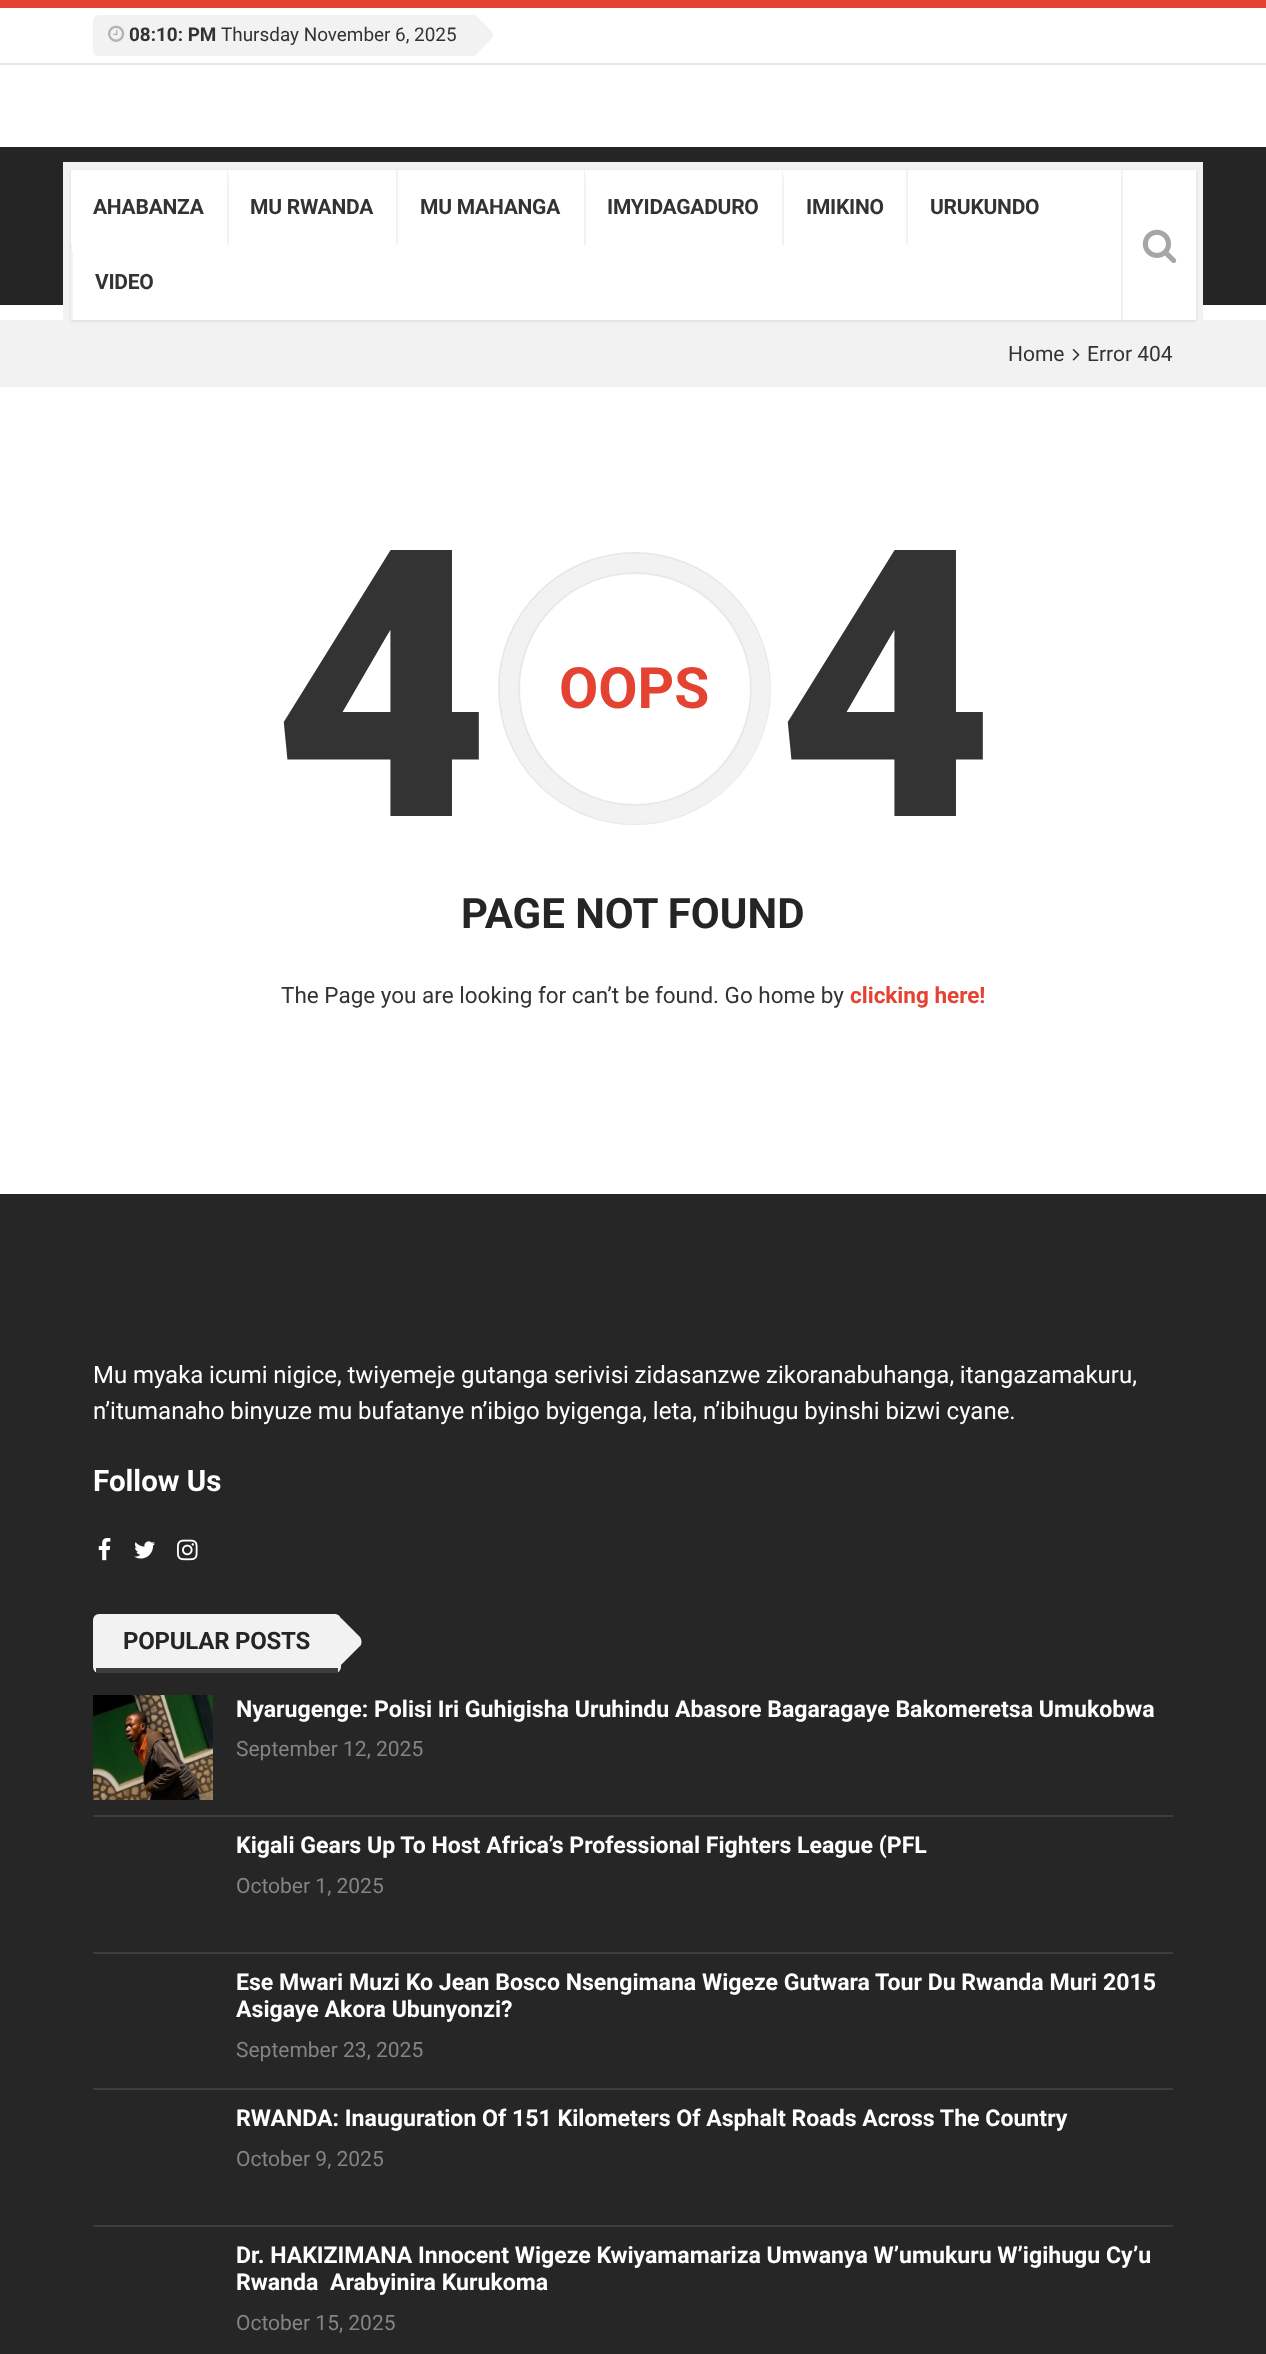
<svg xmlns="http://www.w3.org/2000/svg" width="1266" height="2354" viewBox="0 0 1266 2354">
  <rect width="100%" height="100%" fill="rgb(255,255,255)"/>
  <rect x="0" y="0" width="1266" height="8" fill="rgb(228,67,50)"/>
  <rect x="0" y="63" width="1266" height="2" fill="rgb(230,230,230)"/>
  <rect x="93" y="15" width="386" height="41" rx="6" fill="rgb(242,242,242)"/>
  <image x="108" y="25" width="17" height="17" href="pic1.png"/>
  <text x="129" y="41" font-family="Roboto" font-size="18.9" font-weight="bold" fill="rgb(51,51,51)">08:10: PM</text>
  <path d="M478.5 18L491 30.5C493.5 33 493.5 37 491 39L478.5 52C476 54.5 472.5 54.5 470 52L457.5 39C455 37 455 33 457.5 30.5L470 18C472.5 15.5 476 15.5 478.5 18Z" fill="rgb(242,242,242)"/>
  <text x="221" y="41" font-family="Roboto" font-size="18.9" fill="rgb(51,51,51)">Thursday November 6, 2025</text>
  <rect x="0" y="147" width="1266" height="158" fill="rgb(37,37,37)"/>
  <rect x="63" y="162" width="1140" height="158" fill="rgb(242,242,242)"/>
  <rect x="0" y="320" width="1266" height="67" fill="rgb(242,242,242)"/>
  <rect x="71" y="171" width="1125" height="150" fill="rgba(108,108,108,0.2)" filter="blur(1.5px)"/>
  <rect x="71" y="170" width="1125" height="150" fill="rgb(255,255,255)"/>
  <text x="93" y="214" font-family="Roboto" font-size="21" font-weight="bold" letter-spacing="-0.25" fill="rgb(51,51,51)">AHABANZA</text>
  <rect x="227" y="170" width="2" height="75" fill="rgb(242,242,242)"/>
  <rect x="228" y="170" width="1" height="7" fill="rgb(255,255,255)"/>
  <text x="250" y="214" font-family="Roboto" font-size="21" font-weight="bold" letter-spacing="-0.25" fill="rgb(51,51,51)">MU RWANDA</text>
  <rect x="396" y="170" width="2" height="75" fill="rgb(242,242,242)"/>
  <text x="420" y="214" font-family="Roboto" font-size="21" font-weight="bold" letter-spacing="-0.25" fill="rgb(51,51,51)">MU MAHANGA</text>
  <rect x="584" y="170" width="2" height="75" fill="rgb(242,242,242)"/>
  <rect x="585" y="170" width="1" height="7" fill="rgb(255,255,255)"/>
  <text x="607" y="214" font-family="Roboto" font-size="21" font-weight="bold" letter-spacing="-0.25" fill="rgb(51,51,51)">IMYIDAGADURO</text>
  <rect x="782" y="170" width="2" height="75" fill="rgb(242,242,242)"/>
  <rect x="783" y="170" width="1" height="7" fill="rgb(255,255,255)"/>
  <text x="806" y="214" font-family="Roboto" font-size="21" font-weight="bold" letter-spacing="-0.25" fill="rgb(51,51,51)">IMIKINO</text>
  <rect x="906" y="170" width="2" height="75" fill="rgb(242,242,242)"/>
  <text x="930" y="214" font-family="Roboto" font-size="21" font-weight="bold" letter-spacing="-0.25" fill="rgb(51,51,51)">URUKUNDO</text>
  <rect x="71" y="245" width="2" height="75" fill="rgb(242,242,242)"/>
  <rect x="72" y="245" width="1" height="7" fill="rgb(255,255,255)"/>
  <text x="95" y="289" font-family="Roboto" font-size="21" font-weight="bold" letter-spacing="-0.25" fill="rgb(51,51,51)">VIDEO</text>
  <rect x="1121" y="170" width="2" height="150" fill="rgb(242,242,242)"/>
  <image x="1142" y="229" width="35" height="35" href="pic2.png"/>
  <text x="1008" y="361" font-family="Roboto" font-size="21" fill="rgb(51,51,51)">Home</text>
  <image x="1072" y="349" width="8" height="12" href="pic3.png"/>
  <text x="1087" y="361" font-family="Roboto" font-size="21" fill="rgb(51,51,51)">Error 404</text>
  <text x="273" y="816" font-family="Roboto" font-size="374" font-weight="900" fill="rgb(51,51,51)">4</text>
  <circle cx="634.5" cy="688.5" r="135.5" fill="none" stroke="rgb(232,232,232)" stroke-width="2"/>
  <circle cx="635" cy="689" r="126" fill="none" stroke="rgb(242,242,242)" stroke-width="18"/>
  <circle cx="635" cy="689" r="116" fill="none" stroke="rgb(232,232,232)" stroke-width="2"/>
  <text x="559" y="708" font-family="Roboto" font-size="57" font-weight="bold" fill="rgb(228,67,50)">OOPS</text>
  <text x="777" y="816" font-family="Roboto" font-size="374" font-weight="900" fill="rgb(51,51,51)">4</text>
  <text x="461" y="928" font-family="Roboto" font-size="42" font-weight="bold" fill="rgb(37,37,37)">PAGE NOT FOUND</text>
  <text x="281" y="1003" font-family="Roboto" font-size="22.5" fill="rgb(51,51,51)">The Page you are looking for can’t be found. Go home by</text>
  <text x="850" y="1003" font-family="Roboto" font-size="22.5" font-weight="bold" fill="rgb(228,67,50)">clicking here!</text>
  <rect x="0" y="1194" width="1266" height="1160" fill="rgb(38,38,38)"/>
  <g font-family="Roboto" font-size="24" fill="rgb(255,255,255)">
    <text>
      <tspan x="93" y="1383" word-spacing="-0.25">Mu myaka icumi nigice, twiyemeje gutanga serivisi zidasanzwe zikoranabuhanga, itangazamakuru,</tspan>
      <tspan x="93" y="1419">n’itumanaho binyuze mu bufatanye n’ibigo byigenga, leta, n’ibihugu byinshi bizwi cyane.</tspan>
    </text>
  </g>
  <text x="93" y="1491" font-family="Roboto" font-size="29.5" font-weight="bold" fill="rgb(255,255,255)">Follow Us</text>
  <image x="98" y="1537" width="13" height="24" href="pic4.png"/>
  <image x="134" y="1541" width="21" height="18" href="pic5.png"/>
  <image x="177" y="1539" width="21" height="22" href="pic6.png"/>
  <rect x="93" y="1614" width="248" height="59" rx="6" fill="rgb(242,242,242)"/>
  <rect x="96" y="1668" width="242" height="5" fill="rgb(61,61,61)"/>
  <text x="123" y="1649" font-family="Roboto" font-size="24" font-weight="bold" letter-spacing="-0.25" fill="rgb(37,37,37)">POPULAR POSTS</text>
  <path d="M315 1637L333 1619C336 1617 340 1617 342 1619L360 1637C362 1640 362 1644 360 1646L342 1664C340 1666 336 1666 333 1664L315 1646C313 1644 313 1640 315 1637Z" fill="rgb(242,242,242)"/>
  <rect x="93" y="1815" width="1080" height="2" fill="rgb(61,61,61)"/>
  <image x="93" y="1695" width="120" height="105" href="pic7.png"/>
  <text x="236" y="1717" font-family="Roboto" font-size="23.1" font-weight="bold" fill="rgb(255,255,255)">Nyarugenge: Polisi Iri Guhigisha Uruhindu Abasore Bagaragaye Bakomeretsa Umukobwa</text>
  <text x="236" y="1756" font-family="Roboto" font-size="21" fill="rgb(133,132,132)">September 12, 2025</text>
  <rect x="93" y="1952" width="1080" height="2" fill="rgb(61,61,61)"/>
  <text x="236" y="1853" font-family="Roboto" font-size="23.1" font-weight="bold" fill="rgb(255,255,255)">Kigali Gears Up To Host Africa’s Professional Fighters League (PFL</text>
  <text x="236" y="1893" font-family="Roboto" font-size="21" fill="rgb(133,132,132)">October 1, 2025</text>
  <rect x="93" y="2088" width="1080" height="2" fill="rgb(61,61,61)"/>
  <g font-family="Roboto" font-size="23.1" font-weight="bold" fill="rgb(255,255,255)">
    <text>
      <tspan x="236" y="1990">Ese Mwari Muzi Ko Jean Bosco Nsengimana Wigeze Gutwara Tour Du Rwanda Muri 2015</tspan>
      <tspan x="236" y="2017">Asigaye Akora Ubunyonzi?</tspan>
    </text>
  </g>
  <text x="236" y="2057" font-family="Roboto" font-size="21" fill="rgb(133,132,132)">September 23, 2025</text>
  <rect x="93" y="2225" width="1080" height="2" fill="rgb(61,61,61)"/>
  <text x="236" y="2126" font-family="Roboto" font-size="23.1" font-weight="bold" fill="rgb(255,255,255)">RWANDA: Inauguration Of 151 Kilometers Of Asphalt Roads Across The Country</text>
  <text x="236" y="2166" font-family="Roboto" font-size="21" fill="rgb(133,132,132)">October 9, 2025</text>
  <g font-family="Roboto" font-size="23.1" font-weight="bold" fill="rgb(255,255,255)">
    <text xml:space="preserve"><tspan x="236" y="2263">Dr. HAKIZIMANA Innocent Wigeze Kwiyamamariza Umwanya W’umukuru W’igihugu Cy’u</tspan><tspan x="236" y="2290">Rwanda  Arabyinira Kurukoma</tspan></text>
  </g>
  <text x="236" y="2330" font-family="Roboto" font-size="21" fill="rgb(133,132,132)">October 15, 2025</text>
</svg>
